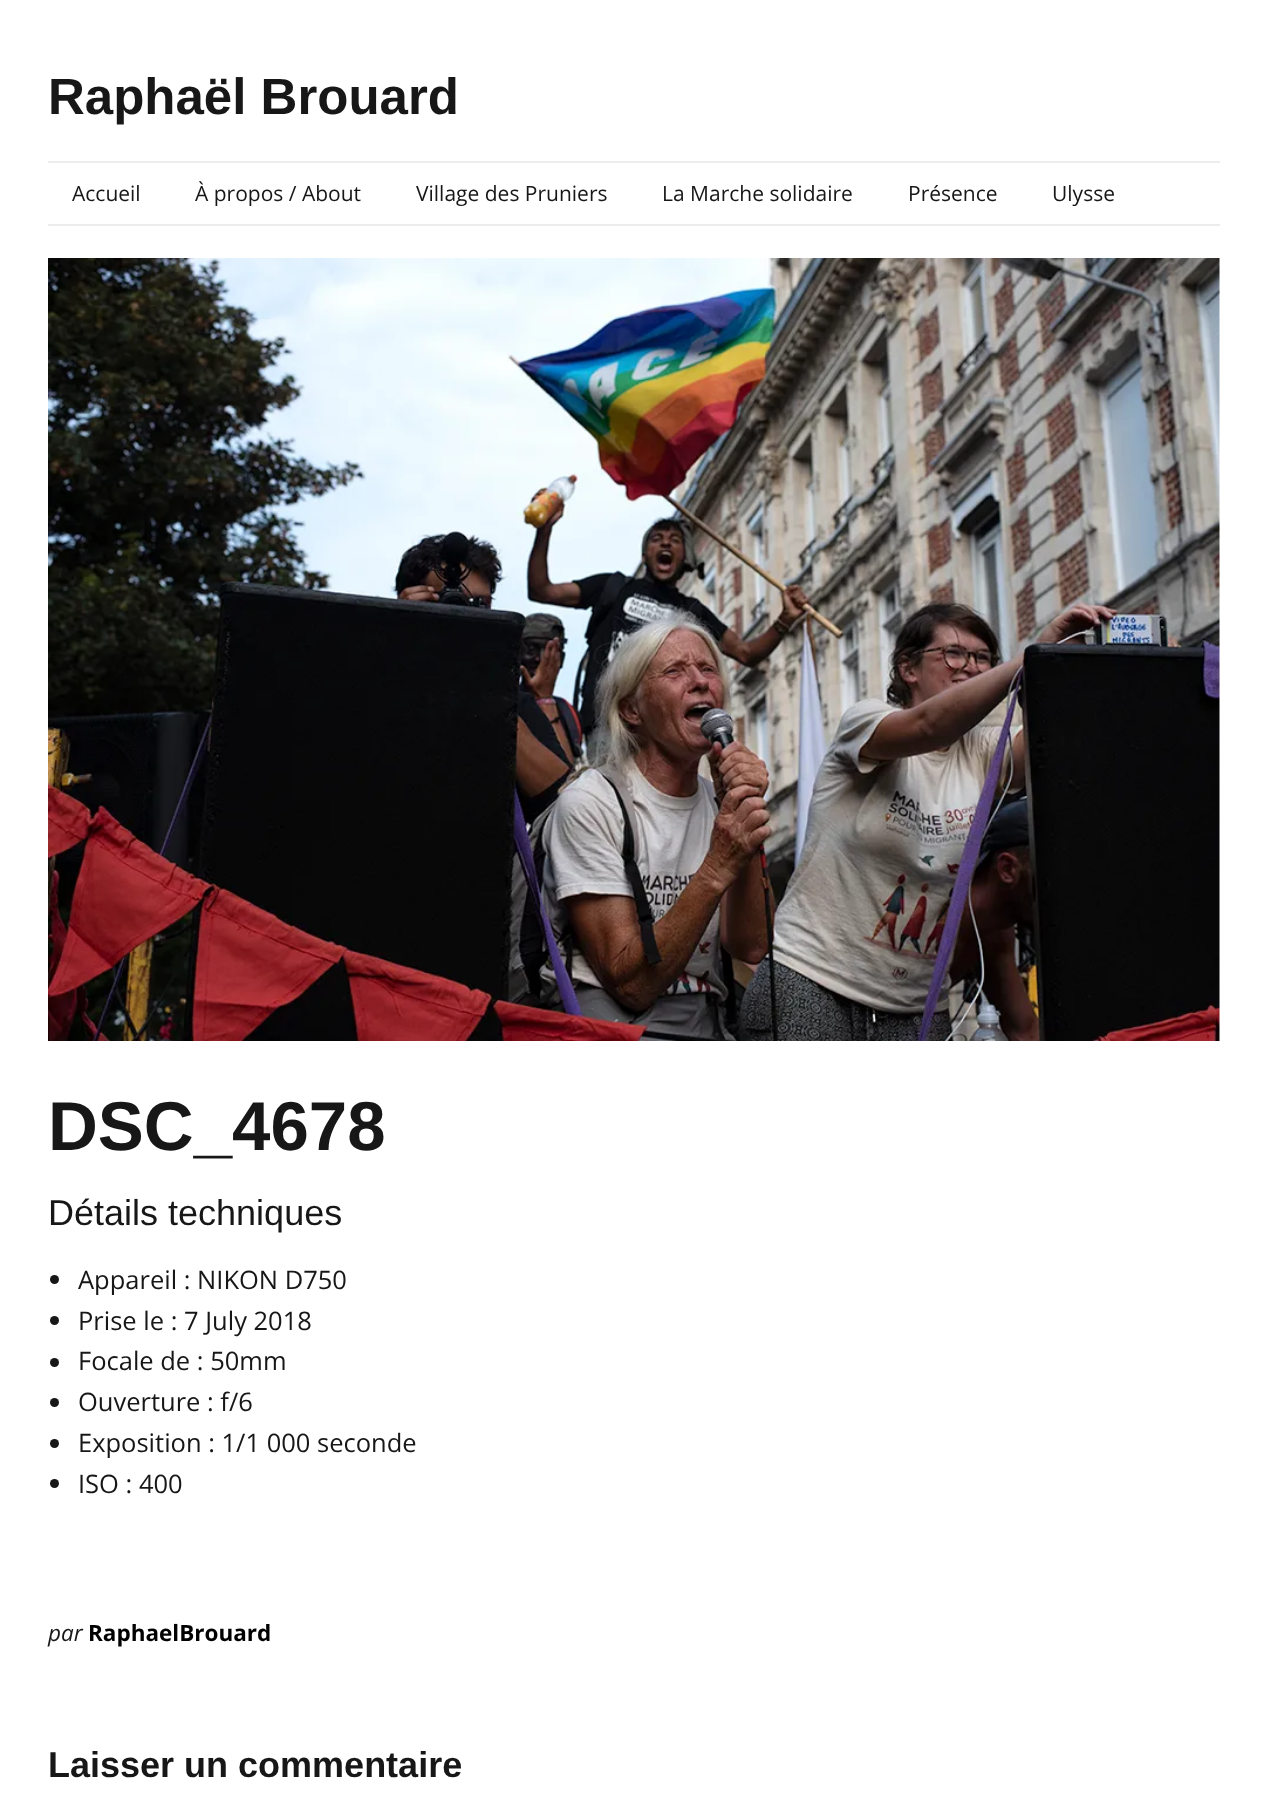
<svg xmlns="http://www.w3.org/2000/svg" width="1267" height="1793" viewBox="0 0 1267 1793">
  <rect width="100%" height="100%" fill="rgb(255,255,255)"/>
  <text x="48" y="114" font-family="Liberation Sans" font-size="51" font-weight="bold" fill="rgb(23,23,23)">Raphaël Brouard</text>
  <rect x="48" y="161" width="1172" height="2" fill="rgb(234,236,238)"/>
  <rect x="48" y="224" width="1172" height="2" fill="rgb(234,236,238)"/>
  <g font-family="Open Sans" font-size="21" fill="rgb(23,23,23)">
    <text x="72" y="201">Accueil</text>
    <text x="195" y="201">À propos / About</text>
    <text x="416" y="201">Village des Pruniers</text>
    <text x="662" y="201">La Marche solidaire</text>
    <text x="908" y="201">Présence</text>
    <text x="1052" y="201">Ulysse</text>
  </g>
  <image x="48" y="258" width="1172" height="783" href="pic1.png"/>
  <text x="48" y="1150" font-family="Liberation Sans" font-size="69" font-weight="bold" fill="rgb(23,23,23)">DSC_4678</text>
  <text x="48" y="1225" font-family="Liberation Sans" font-size="36" fill="rgb(23,23,23)">Détails techniques</text>
  <circle cx="54.5" cy="1279.5" r="4.5" fill="rgb(23,23,23)"/>
  <text x="78" y="1289" font-family="Open Sans" font-size="25.5" fill="rgb(23,23,23)">Appareil : NIKON D750</text>
  <circle cx="54.5" cy="1320.5" r="4.5" fill="rgb(23,23,23)"/>
  <text x="78" y="1330" font-family="Open Sans" font-size="25.5" fill="rgb(23,23,23)">Prise le : 7 July 2018</text>
  <circle cx="54.5" cy="1362.5" r="4.5" fill="rgb(23,23,23)"/>
  <text x="78" y="1370" font-family="Open Sans" font-size="25.5" fill="rgb(23,23,23)">Focale de : 50mm</text>
  <circle cx="54.5" cy="1402.5" r="4.5" fill="rgb(23,23,23)"/>
  <text x="78" y="1411" font-family="Open Sans" font-size="25.5" fill="rgb(23,23,23)">Ouverture : f/6</text>
  <circle cx="54.5" cy="1443.5" r="4.5" fill="rgb(23,23,23)"/>
  <text x="78" y="1452" font-family="Open Sans" font-size="25.5" fill="rgb(23,23,23)">Exposition : 1/1 000 seconde</text>
  <circle cx="54.5" cy="1483.5" r="4.5" fill="rgb(23,23,23)"/>
  <text x="78" y="1493" font-family="Open Sans" font-size="25.5" fill="rgb(23,23,23)">ISO : 400</text>
  <text x="48" y="1641" font-family="Open Sans" font-size="22.5" font-style="italic" fill="rgb(23,23,23)">par</text>
  <text x="88" y="1641" font-family="Open Sans" font-size="22.5" font-weight="bold" fill="rgb(0,0,0)">RaphaelBrouard</text>
  <text x="48" y="1777" font-family="Liberation Sans" font-size="36" font-weight="bold" fill="rgb(23,23,23)">Laisser un commentaire</text>
</svg>
